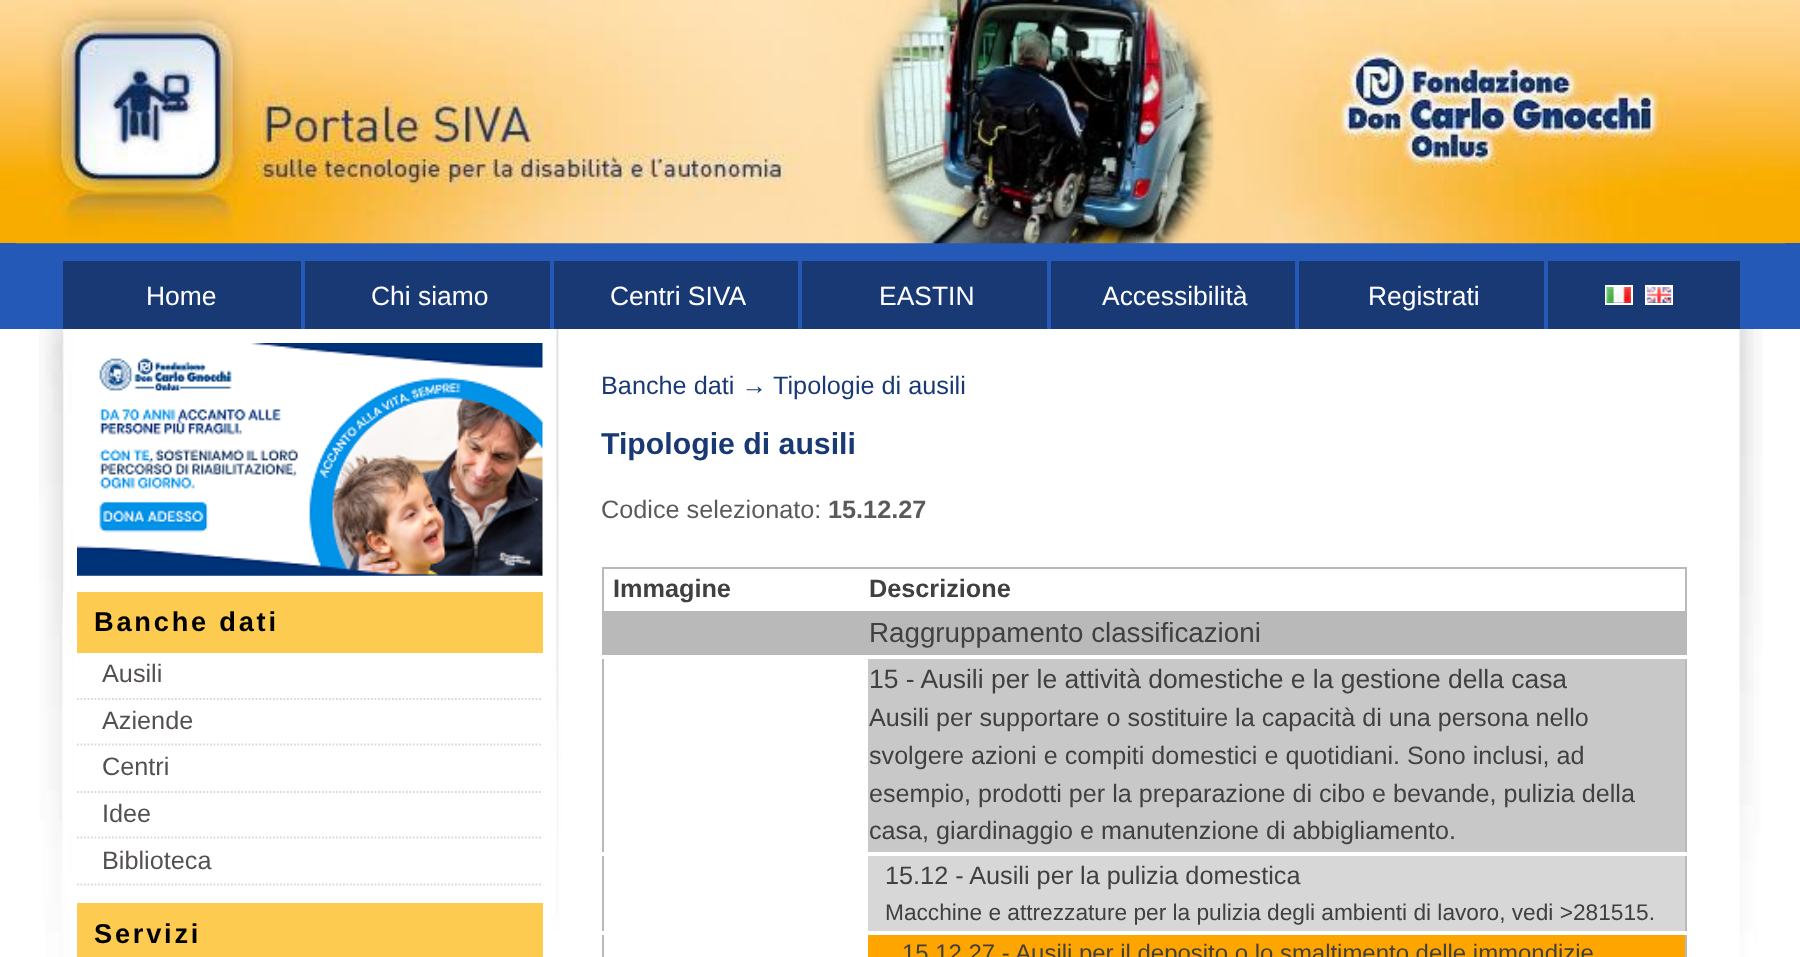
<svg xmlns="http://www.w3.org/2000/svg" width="1800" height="957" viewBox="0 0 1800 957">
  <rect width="100%" height="100%" fill="rgb(255,255,255)"/>
  <image x="0" y="0" width="1800" height="243" href="pic1.png"/>
  <rect x="0" y="243" width="1800" height="86" fill="rgb(36,89,183)"/>
  <image x="15" y="0" width="1770" height="244" href="pic2.png"/>
  <rect x="63" y="261" width="1677" height="68" fill="rgb(25,57,116)"/>
  <rect x="301" y="261" width="4" height="68" fill="rgb(36,89,183)"/>
  <text x="146" y="305" font-family="Liberation Sans" font-size="26.45" fill="rgb(255,255,255)">Home</text>
  <rect x="550" y="261" width="4" height="68" fill="rgb(36,89,183)"/>
  <text x="371" y="305" font-family="Liberation Sans" font-size="26.45" fill="rgb(255,255,255)">Chi siamo</text>
  <rect x="798" y="261" width="4" height="68" fill="rgb(36,89,183)"/>
  <text x="610" y="305" font-family="Liberation Sans" font-size="26.45" fill="rgb(255,255,255)">Centri SIVA</text>
  <rect x="1047" y="261" width="4" height="68" fill="rgb(36,89,183)"/>
  <text x="879" y="305" font-family="Liberation Sans" font-size="26.45" fill="rgb(255,255,255)">EASTIN</text>
  <rect x="1295" y="261" width="4" height="68" fill="rgb(36,89,183)"/>
  <text x="1102" y="305" font-family="Liberation Sans" font-size="26.45" fill="rgb(255,255,255)">Accessibilità</text>
  <rect x="1544" y="261" width="4" height="68" fill="rgb(36,89,183)"/>
  <text x="1368" y="305" font-family="Liberation Sans" font-size="26.45" fill="rgb(255,255,255)">Registrati</text>
  <rect x="1606" y="286" width="26" height="18" fill="none" stroke="rgb(255,255,255)" stroke-width="2"/>
  <image x="1606" y="287" width="25" height="16" href="pic3.png"/>
  <rect x="1646" y="286" width="26" height="18" fill="none" stroke="rgb(255,255,255)" stroke-width="2"/>
  <image x="1646" y="287" width="26" height="16" href="pic4.png"/>
  <image x="39" y="329" width="1724" height="628" href="pic5.png"/>
  <image x="77" y="343" width="466" height="233" href="pic6.png"/>
  <rect x="63" y="592" width="9" height="241" fill="rgb(255,255,255)"/>
  <rect x="77" y="592" width="466" height="61" fill="rgb(253,203,80)"/>
  <text x="94" y="631" font-family="Liberation Sans" font-size="27.25" font-weight="bold" letter-spacing="2.75" fill="rgb(0,0,0)">Banche dati</text>
  <path d="M77 699H542.5" fill="none" stroke="rgb(217,217,219)" stroke-width="1.8" stroke-dasharray="1.75 1.75"/>
  <text x="102" y="682" font-family="Liberation Sans" font-size="25.25" fill="rgb(84,80,79)">Ausili</text>
  <path d="M77 744.5H542.5" fill="none" stroke="rgb(217,217,219)" stroke-width="1.8" stroke-dasharray="1.75 1.75"/>
  <text x="102" y="729" font-family="Liberation Sans" font-size="25.25" fill="rgb(84,80,79)">Aziende</text>
  <path d="M77 792H542.5" fill="none" stroke="rgb(217,217,219)" stroke-width="1.8" stroke-dasharray="1.75 1.75"/>
  <text x="102" y="775" font-family="Liberation Sans" font-size="25.25" fill="rgb(84,80,79)">Centri</text>
  <path d="M77 837.5H542.5" fill="none" stroke="rgb(217,217,219)" stroke-width="1.8" stroke-dasharray="1.75 1.75"/>
  <text x="102" y="822" font-family="Liberation Sans" font-size="25.25" fill="rgb(84,80,79)">Idee</text>
  <path d="M77 884.5H542.5" fill="none" stroke="rgb(217,217,219)" stroke-width="1.8" stroke-dasharray="1.75 1.75"/>
  <text x="102" y="869" font-family="Liberation Sans" font-size="25.25" fill="rgb(84,80,79)">Biblioteca</text>
  <rect x="77" y="903" width="466" height="54" fill="rgb(253,203,80)"/>
  <text x="94" y="943" font-family="Liberation Sans" font-size="27.25" font-weight="bold" letter-spacing="2.75" fill="rgb(0,0,0)">Servizi</text>
  <g font-family="Liberation Sans" font-size="25.25" fill="rgb(25,57,116)">
    <text x="601" y="394">Banche dati →</text>
    <text x="773" y="394">Tipologie di ausili</text>
  </g>
  <text x="601" y="454" font-family="Liberation Sans" font-size="30.25" font-weight="bold" fill="rgb(25,57,116)">Tipologie di ausili</text>
  <text x="601" y="518" font-family="Liberation Sans" font-size="25.25" fill="rgb(91,90,88)">Codice selezionato:</text>
  <text x="828" y="518" font-family="Liberation Sans" font-size="25.25" font-weight="bold" fill="rgb(91,90,88)">15.12.27</text>
  <rect x="602" y="567" width="1085" height="2" fill="rgb(185,185,185)"/>
  <rect x="1685" y="567" width="2" height="390" fill="rgb(185,185,185)"/>
  <rect x="602" y="567" width="2" height="390" fill="rgb(185,185,185)"/>
  <g font-family="Liberation Sans" font-size="25.25" font-weight="bold" fill="rgb(64,64,64)">
    <text x="613" y="597">Immagine</text>
    <text x="869" y="597">Descrizione</text>
  </g>
  <rect x="604" y="611" width="1081" height="44" fill="rgb(185,185,185)"/>
  <rect x="600" y="655" width="1087" height="4" fill="rgb(255,255,255)"/>
  <text x="869" y="642" font-family="Liberation Sans" font-size="27.75" fill="rgb(64,64,64)">Raggruppamento classificazioni</text>
  <rect x="868" y="659" width="817" height="193" fill="rgb(200,200,200)"/>
  <rect x="600" y="852" width="1087" height="4" fill="rgb(255,255,255)"/>
  <text x="869" y="688" font-family="Liberation Sans" font-size="26.45" fill="rgb(64,64,64)">15 - Ausili per le attività domestiche e la gestione della casa</text>
  <g font-family="Liberation Sans" font-size="25.15" fill="rgb(64,64,64)">
    <text>
      <tspan x="869" y="726">Ausili per supportare o sostituire la capacità di una persona nello</tspan>
      <tspan x="869" y="764">svolgere azioni e compiti domestici e quotidiani. Sono inclusi, ad</tspan>
      <tspan x="869" y="802">esempio, prodotti per la preparazione di cibo e bevande, pulizia della</tspan>
      <tspan x="869" y="839">casa, giardinaggio e manutenzione di abbigliamento.</tspan>
    </text>
  </g>
  <rect x="868" y="856" width="817" height="75" fill="rgb(215,215,215)"/>
  <rect x="600" y="931" width="1087" height="4" fill="rgb(255,255,255)"/>
  <text x="885" y="884" font-family="Liberation Sans" font-size="25.25" fill="rgb(64,64,64)">15.12 - Ausili per la pulizia domestica</text>
  <text x="885" y="920" font-family="Liberation Sans" font-size="22.7" fill="rgb(64,64,64)">Macchine e attrezzature per la pulizia degli ambienti di lavoro, vedi &gt;281515.</text>
  <rect x="868" y="935" width="817" height="22" fill="rgb(255,165,0)"/>
  <text x="902" y="961" font-family="Liberation Sans" font-size="23.95" fill="rgb(64,64,64)">15.12.27 - Ausili per il deposito o lo smaltimento delle immondizie</text>
</svg>
